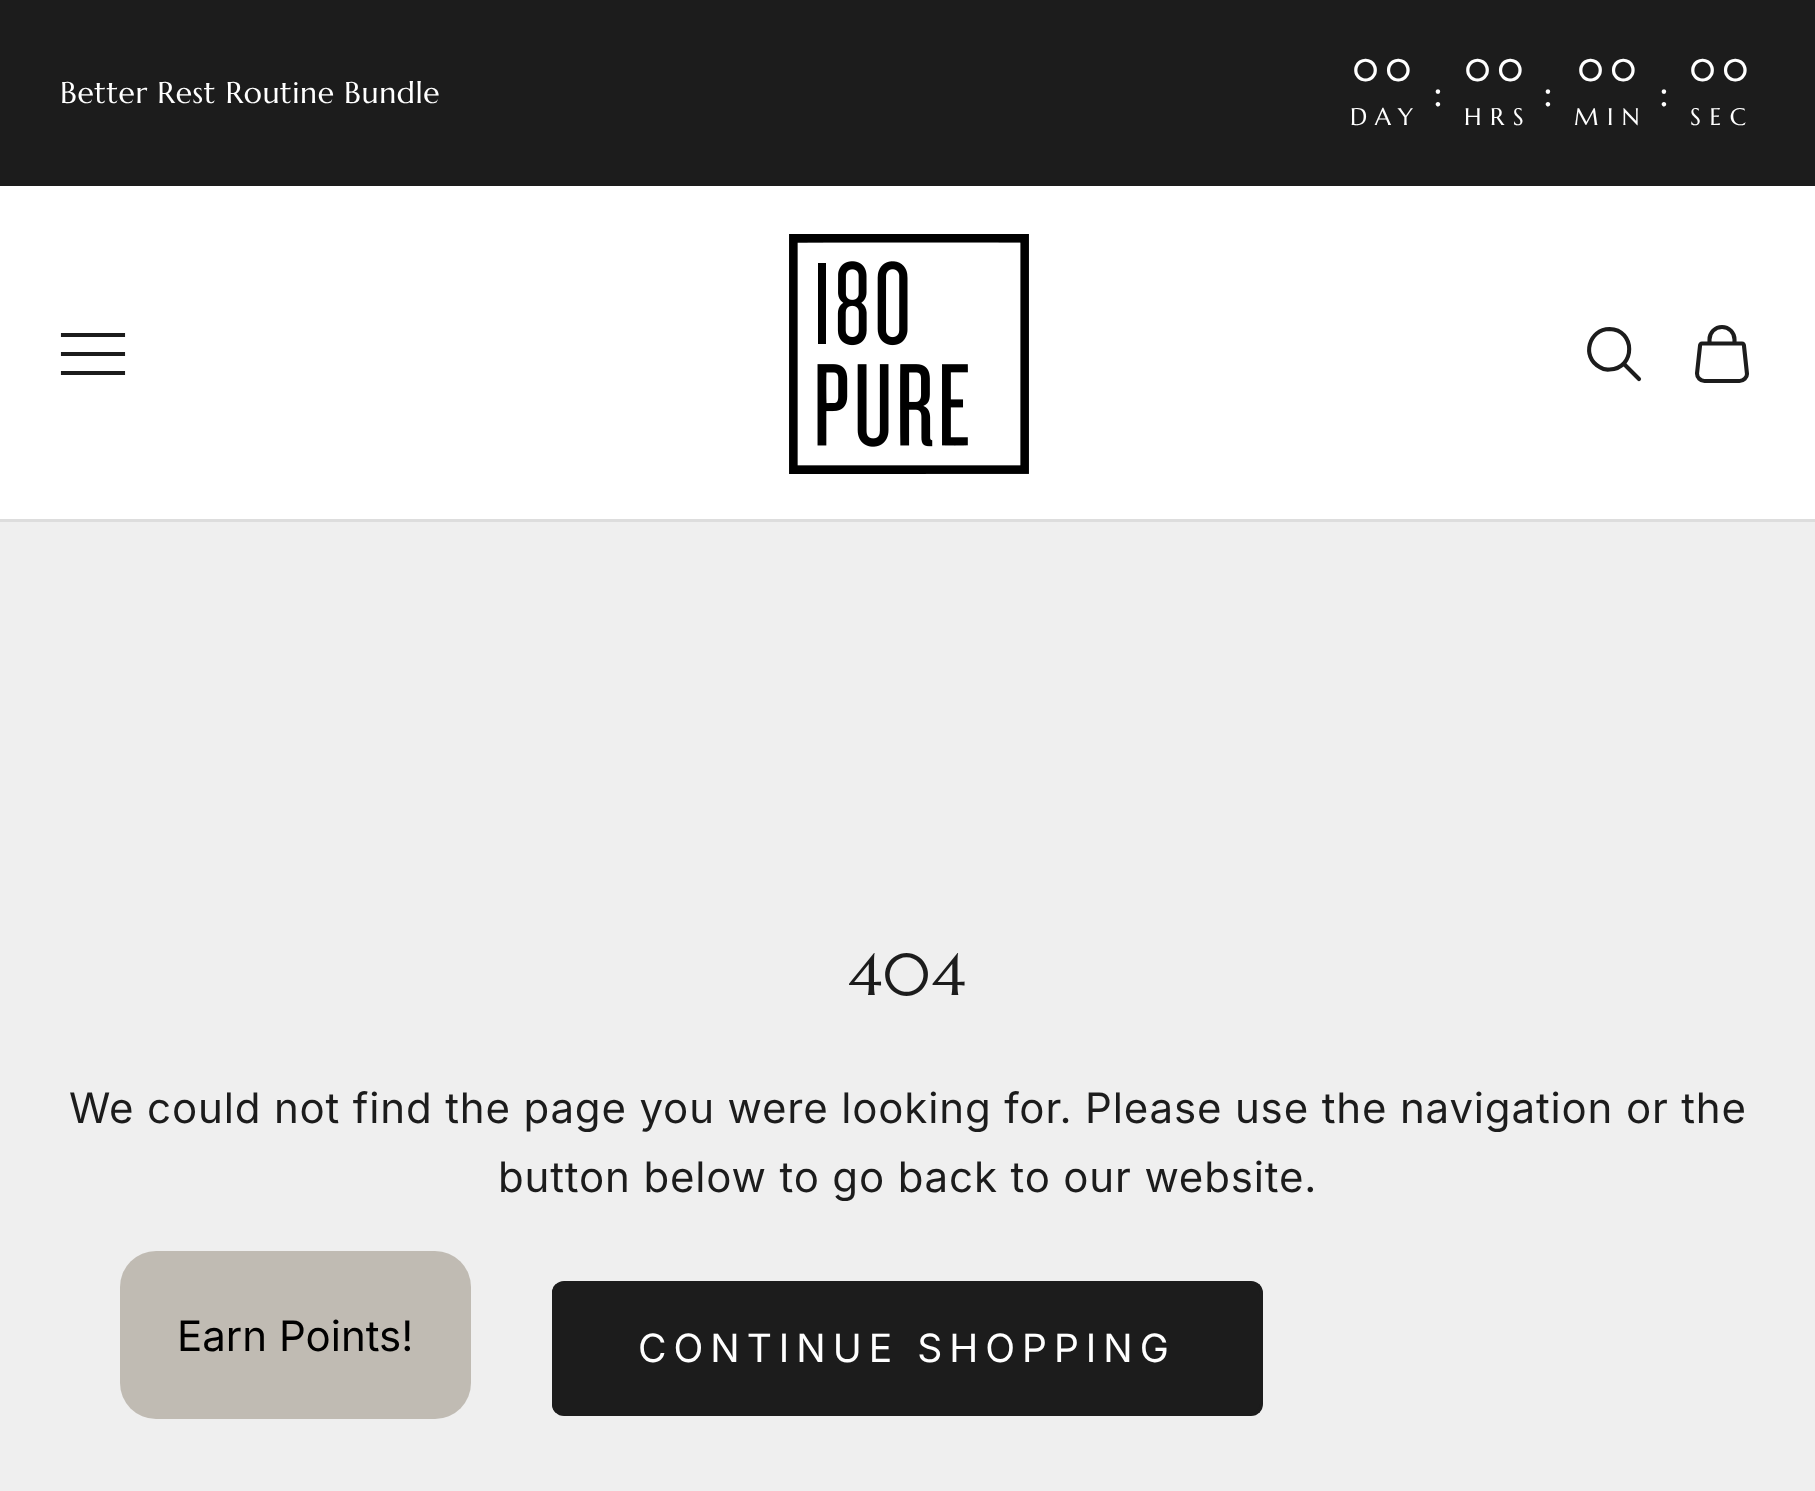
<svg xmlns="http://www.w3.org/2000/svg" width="1815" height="1491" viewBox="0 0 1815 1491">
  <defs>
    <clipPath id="clip1"><rect x="552" y="1281" width="711" height="135" rx="12"/></clipPath>
  </defs>
  <rect width="100%" height="100%" fill="rgb(239,239,239)"/>
  <rect x="0" y="0" width="1815" height="186" fill="rgb(28,28,28)"/>
  <text x="60" y="103" font-family="Marcellus" font-size="30" letter-spacing="0.6" fill="rgb(255,255,255)">Better Rest Routine Bundle</text>
  <text x="1353" y="81" font-family="Marcellus" font-size="30" font-weight="bold" letter-spacing="8.5" fill="rgb(255,255,255)">00</text>
  <text x="1350" y="125" font-family="Marcellus" font-size="24" letter-spacing="8.5" fill="rgb(255,255,255)">DAY</text>
  <text x="1433" y="106" font-family="Marcellus" font-size="42" letter-spacing="8.5" fill="rgb(255,255,255)">:</text>
  <text x="1465" y="81" font-family="Marcellus" font-size="30" font-weight="bold" letter-spacing="8.5" fill="rgb(255,255,255)">00</text>
  <text x="1464" y="125" font-family="Marcellus" font-size="24" letter-spacing="8.5" fill="rgb(255,255,255)">HRS</text>
  <text x="1543" y="106" font-family="Marcellus" font-size="42" letter-spacing="8.5" fill="rgb(255,255,255)">:</text>
  <text x="1578" y="81" font-family="Marcellus" font-size="30" font-weight="bold" letter-spacing="8.5" fill="rgb(255,255,255)">00</text>
  <text x="1574" y="125" font-family="Marcellus" font-size="24" letter-spacing="8.5" fill="rgb(255,255,255)">MIN</text>
  <text x="1659" y="106" font-family="Marcellus" font-size="42" letter-spacing="8.5" fill="rgb(255,255,255)">:</text>
  <text x="1690" y="81" font-family="Marcellus" font-size="30" font-weight="bold" letter-spacing="8.5" fill="rgb(255,255,255)">00</text>
  <text x="1690" y="125" font-family="Marcellus" font-size="24" letter-spacing="8.5" fill="rgb(255,255,255)">SEC</text>
  <rect x="0" y="186" width="1815" height="333" fill="rgb(255,255,255)"/>
  <rect x="0" y="519" width="1815" height="3" fill="rgb(221,221,221)"/>
  <path d="M63 373H123M63 354H123M63 335H123" fill="none" stroke="rgb(28,28,28)" stroke-width="4.1" stroke-linecap="square"/>
  <image x="789" y="234" width="240" height="240" href="pic1.png"/>
  <path d="M1609.5 329C1589 329 1581 357 1599.5 367C1602.5 369 1606 370 1609.5 369.5C1636 368.5 1635.5 329.5 1609.5 329Z" fill="none" stroke="rgb(28,28,28)" stroke-width="4.1"/>
  <path d="M1624.5 364.5L1639 379" fill="none" stroke="rgb(28,28,28)" stroke-width="4.1" stroke-linecap="round"/>
  <path d="M1702 343.5C1701 343.5 1700 344.5 1700 346L1697 373.5C1697 377.5 1700.5 381 1704.5 381H1739.5C1743.5 381 1747 377.5 1747 374L1744 346C1744 344.5 1743 343.5 1742 343.5ZM1709.5 343.5V339.5C1709.5 332.5 1715 327 1722 327C1729 327 1734.5 332.5 1734.5 339.5V343.5" fill="none" stroke="rgb(28,28,28)" stroke-width="4.1" stroke-linecap="round" stroke-linejoin="round"/>
  <text x="848" y="995" font-family="Marcellus" font-size="59" letter-spacing="1" fill="rgb(28,28,28)">404</text>
  <g font-family="Inter" font-size="42" letter-spacing="0.85" fill="rgb(28,28,28)">
    <text x="69" y="1123">We could not find the page you were looking for. Please use the navigation or the</text>
    <text x="498" y="1192">button below to go back to our website.</text>
  </g>
  <g clip-path="url(#clip1)">
    <rect x="552" y="1284" width="708" height="129" fill="rgb(28,28,28)"/>
  </g>
  <rect x="553.5" y="1282.5" width="708" height="132" rx="10.5" fill="none" stroke="rgb(28,28,28)" stroke-width="3"/>
  <text x="638" y="1362" font-family="Inter" font-size="39" letter-spacing="7" fill="rgb(255,255,255)">CONTINUE SHOPPING</text>
  <rect x="120" y="1251" width="351" height="168" rx="36" fill="rgb(192,187,179)"/>
  <text x="177" y="1351" font-family="Inter" font-size="42" fill="rgb(0,0,0)">Earn Points!</text>
</svg>
